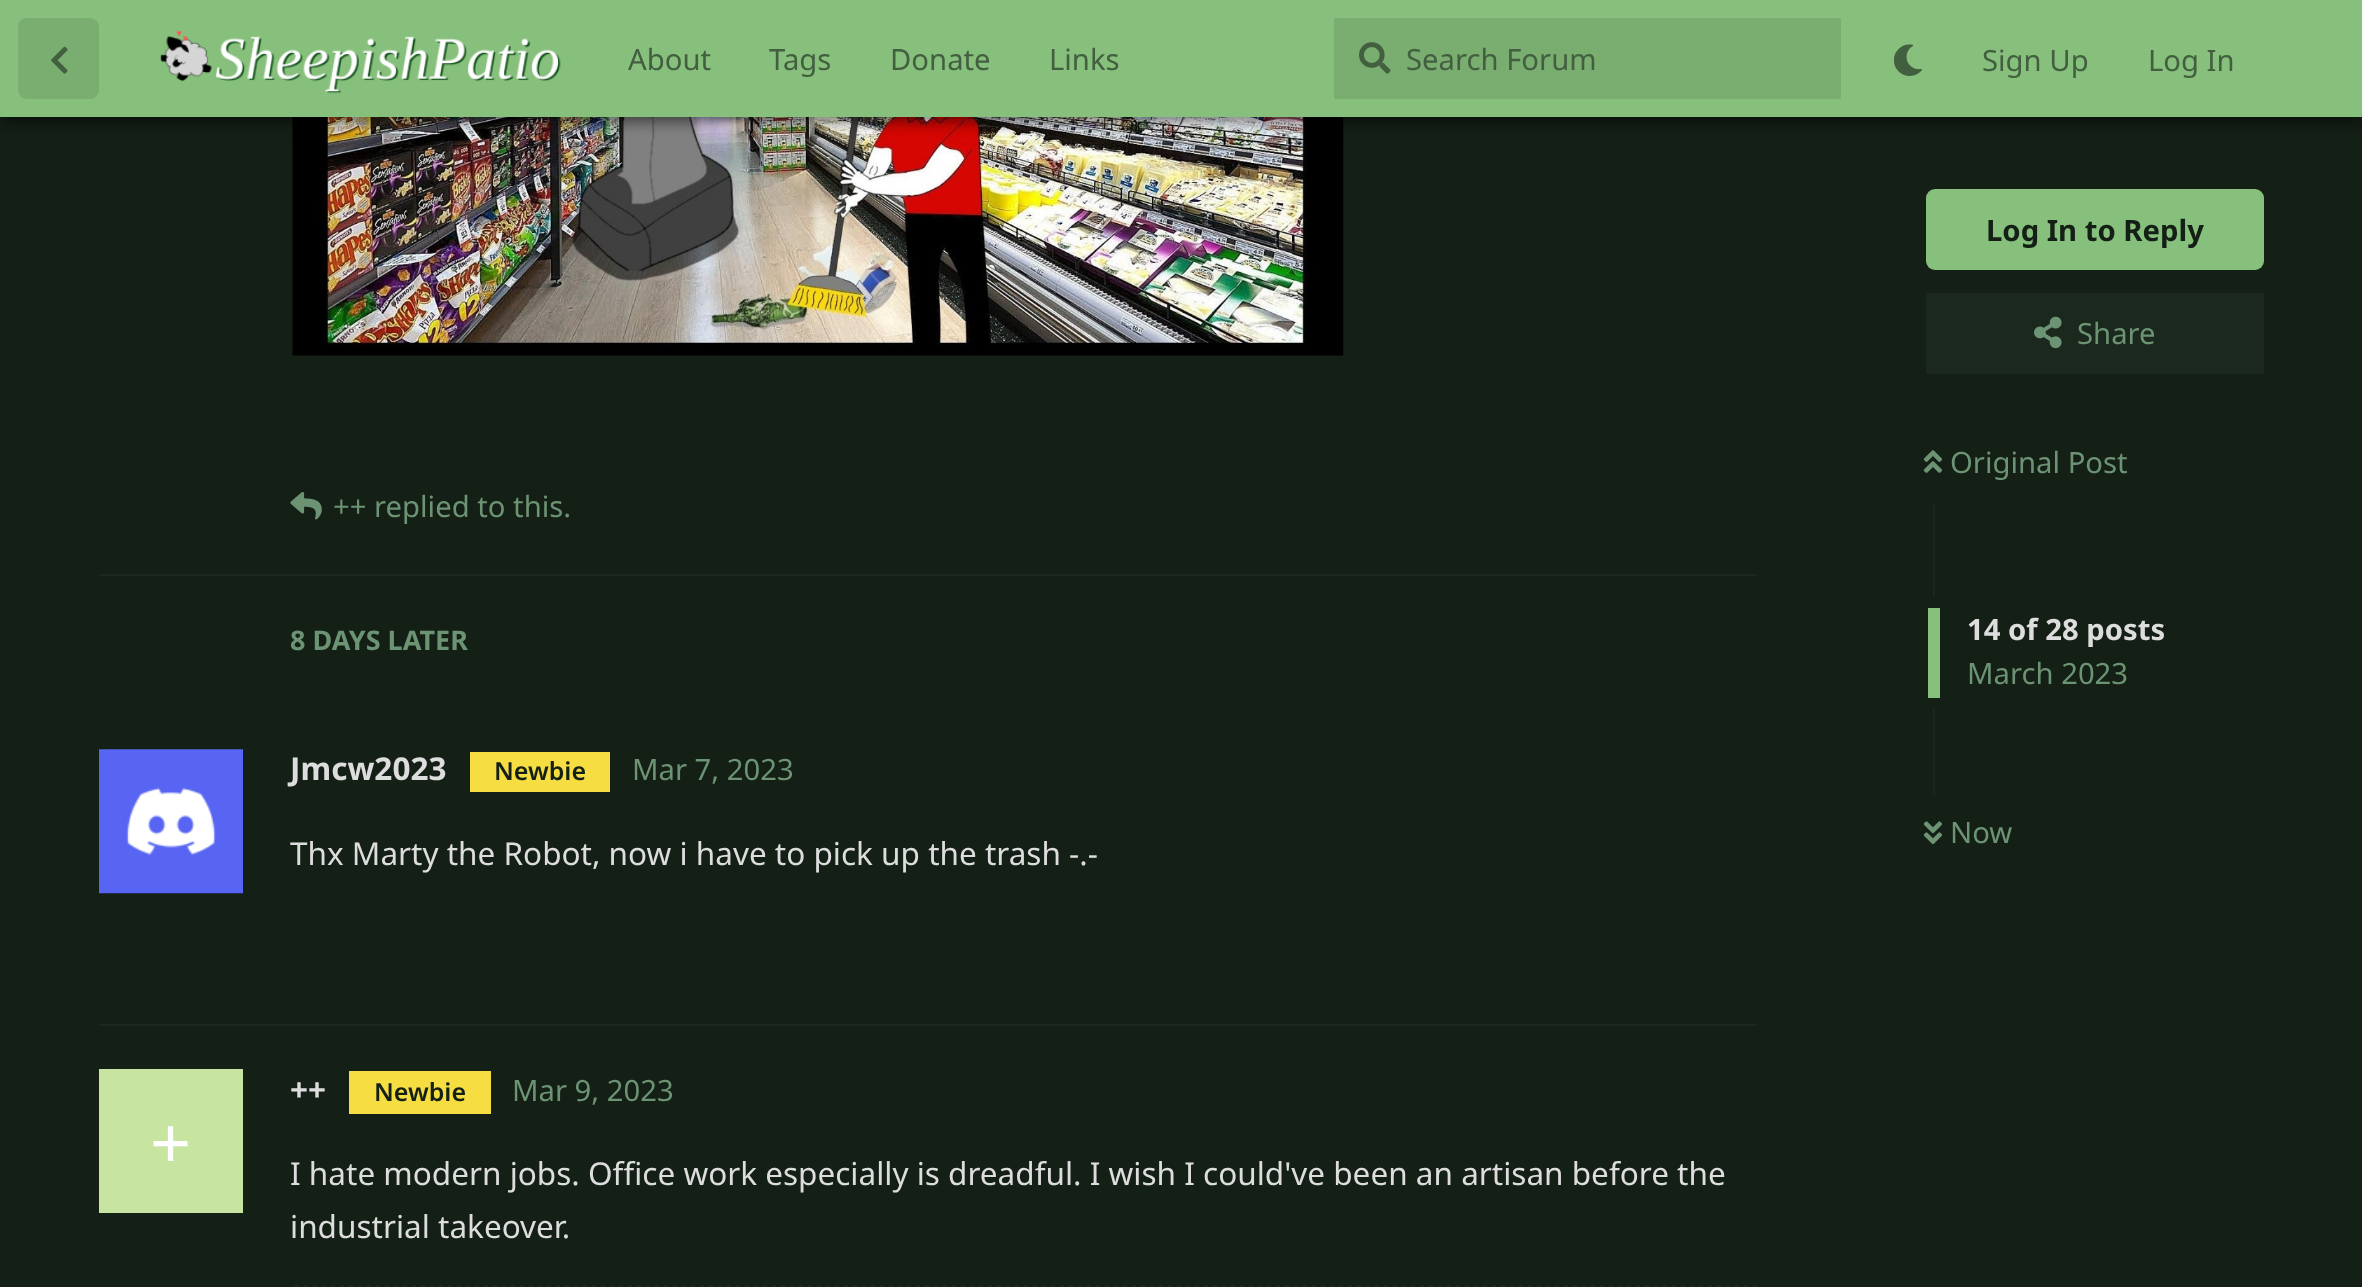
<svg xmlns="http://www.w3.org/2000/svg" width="2362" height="1287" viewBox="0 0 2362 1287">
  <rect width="100%" height="100%" fill="rgb(20,31,22)"/>
  <image x="292" y="117" width="1052" height="239" href="pic5.png"/>
  <rect x="0" y="5" width="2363" height="117" fill="rgba(0,0,0,0.5)" filter="blur(7px)"/>
  <rect x="0" y="0" width="2362" height="117" fill="rgb(135,192,124)"/>
  <rect x="18" y="18" width="81" height="81" rx="9" fill="rgb(122,173,112)"/>
  <image x="51" y="46" width="17" height="28" href="pic1.png"/>
  <image x="160" y="30" width="401" height="64" href="pic2.png"/>
  <g font-family="Noto Sans" font-size="29.25" fill="rgb(66,95,63)">
    <text x="628" y="70">About</text>
    <text x="769" y="70">Tags</text>
    <text x="890" y="70">Donate</text>
    <text x="1049" y="70">Links</text>
  </g>
  <rect x="1334" y="18" width="507" height="81" fill="rgb(122,173,112)"/>
  <image x="1359" y="42" width="32" height="32" href="pic3.png"/>
  <text x="1406" y="70" font-family="Noto Sans" font-size="29.25" fill="rgb(66,95,63)">Search Forum</text>
  <image x="1893" y="44" width="29" height="32" href="pic4.png"/>
  <g font-family="Noto Sans" font-size="29.25" fill="rgb(66,95,63)">
    <text x="1982" y="71">Sign Up</text>
    <text x="2148" y="71">Log In</text>
  </g>
  <rect x="99" y="574" width="1658" height="2" fill="rgb(27,40,29)"/>
  <image x="290" y="492" width="32" height="28" href="pic6.png"/>
  <text x="333" y="517" font-family="Noto Sans" font-size="29.25" fill="rgb(108,147,115)">++ replied to this.</text>
  <rect x="99" y="1024" width="1658" height="2" fill="rgb(27,40,29)"/>
  <text x="290" y="650" font-family="Noto Sans" font-size="27" font-weight="bold" fill="rgb(108,147,115)">8 DAYS LATER</text>
  <image x="99" y="749" width="144" height="145" href="pic7.png"/>
  <text x="290" y="780" font-family="Noto Sans" font-size="31.5" font-weight="bold" fill="rgb(221,221,221)">Jmcw2023</text>
  <rect x="470" y="752" width="140" height="40" fill="rgb(245,221,66)"/>
  <text x="494" y="780" font-family="Noto Sans" font-size="25" font-weight="600" fill="rgb(20,31,22)">Newbie</text>
  <text x="632" y="780" font-family="Noto Sans" font-size="29.25" fill="rgb(108,147,115)">Mar 7, 2023</text>
  <text x="290" y="865" font-family="Noto Sans" font-size="31.5" fill="rgb(221,221,221)">Thx Marty the Robot, now i have to pick up the trash -.-</text>
  <text x="290" y="1101" font-family="Noto Sans" font-size="31.5" font-weight="bold" fill="rgb(221,221,221)">++</text>
  <rect x="99" y="1069" width="144" height="144" fill="rgb(199,229,160)"/>
  <text x="150" y="1169" font-family="Noto Sans" font-size="72" fill="rgb(255,255,255)">+</text>
  <rect x="349" y="1071" width="142" height="43" fill="rgb(245,221,66)"/>
  <text x="374" y="1101" font-family="Noto Sans" font-size="25" font-weight="600" fill="rgb(20,31,22)">Newbie</text>
  <text x="512" y="1101" font-family="Noto Sans" font-size="29.25" fill="rgb(108,147,115)">Mar 9, 2023</text>
  <g font-family="Noto Sans" font-size="31.5" fill="rgb(221,221,221)">
    <text>
      <tspan x="290" y="1185">I hate modern jobs. Office work especially is dreadful. I wish I could've been an artisan before the</tspan>
      <tspan x="290" y="1238">industrial takeover.</tspan>
    </text>
  </g>
  <rect x="290" y="1285" width="1467" height="2" fill="rgb(27,40,29)"/>
  <path d="M290 1287H1757" fill="none" stroke="rgb(20,31,22)" stroke-width="4.5" stroke-dasharray="4.5 4.5"/>
  <rect x="1926" y="189" width="338" height="81" rx="9" fill="rgb(135,192,124)"/>
  <text x="1986" y="241" font-family="Noto Sans" font-size="29.25" font-weight="bold" fill="rgb(20,31,22)">Log In to Reply</text>
  <rect x="1926" y="293" width="338" height="81" fill="rgb(27,40,29)"/>
  <image x="2034" y="316" width="28" height="33" href="pic8.png"/>
  <text x="2077" y="344" font-family="Noto Sans" font-size="29.25" fill="rgb(108,147,115)">Share</text>
  <image x="1923" y="450" width="20" height="23" href="pic9.png"/>
  <text x="1950" y="473" font-family="Noto Sans" font-size="29.25" fill="rgb(108,147,115)">Original Post</text>
  <rect x="1933" y="504" width="2" height="92" fill="rgb(27,40,29)"/>
  <rect x="1928" y="608" width="12" height="90" fill="rgb(135,192,124)"/>
  <text x="1967" y="640" font-family="Noto Sans" font-size="29.25" font-weight="bold" fill="rgb(221,221,221)">14 of 28 posts</text>
  <text x="1967" y="684" font-family="Noto Sans" font-size="29.25" fill="rgb(108,147,115)">March 2023</text>
  <rect x="1933" y="709" width="2" height="85" fill="rgb(27,40,29)"/>
  <image x="1923" y="821" width="19" height="24" href="pic10.png"/>
  <text x="1950" y="843" font-family="Noto Sans" font-size="29.25" fill="rgb(108,147,115)">Now</text>
</svg>
